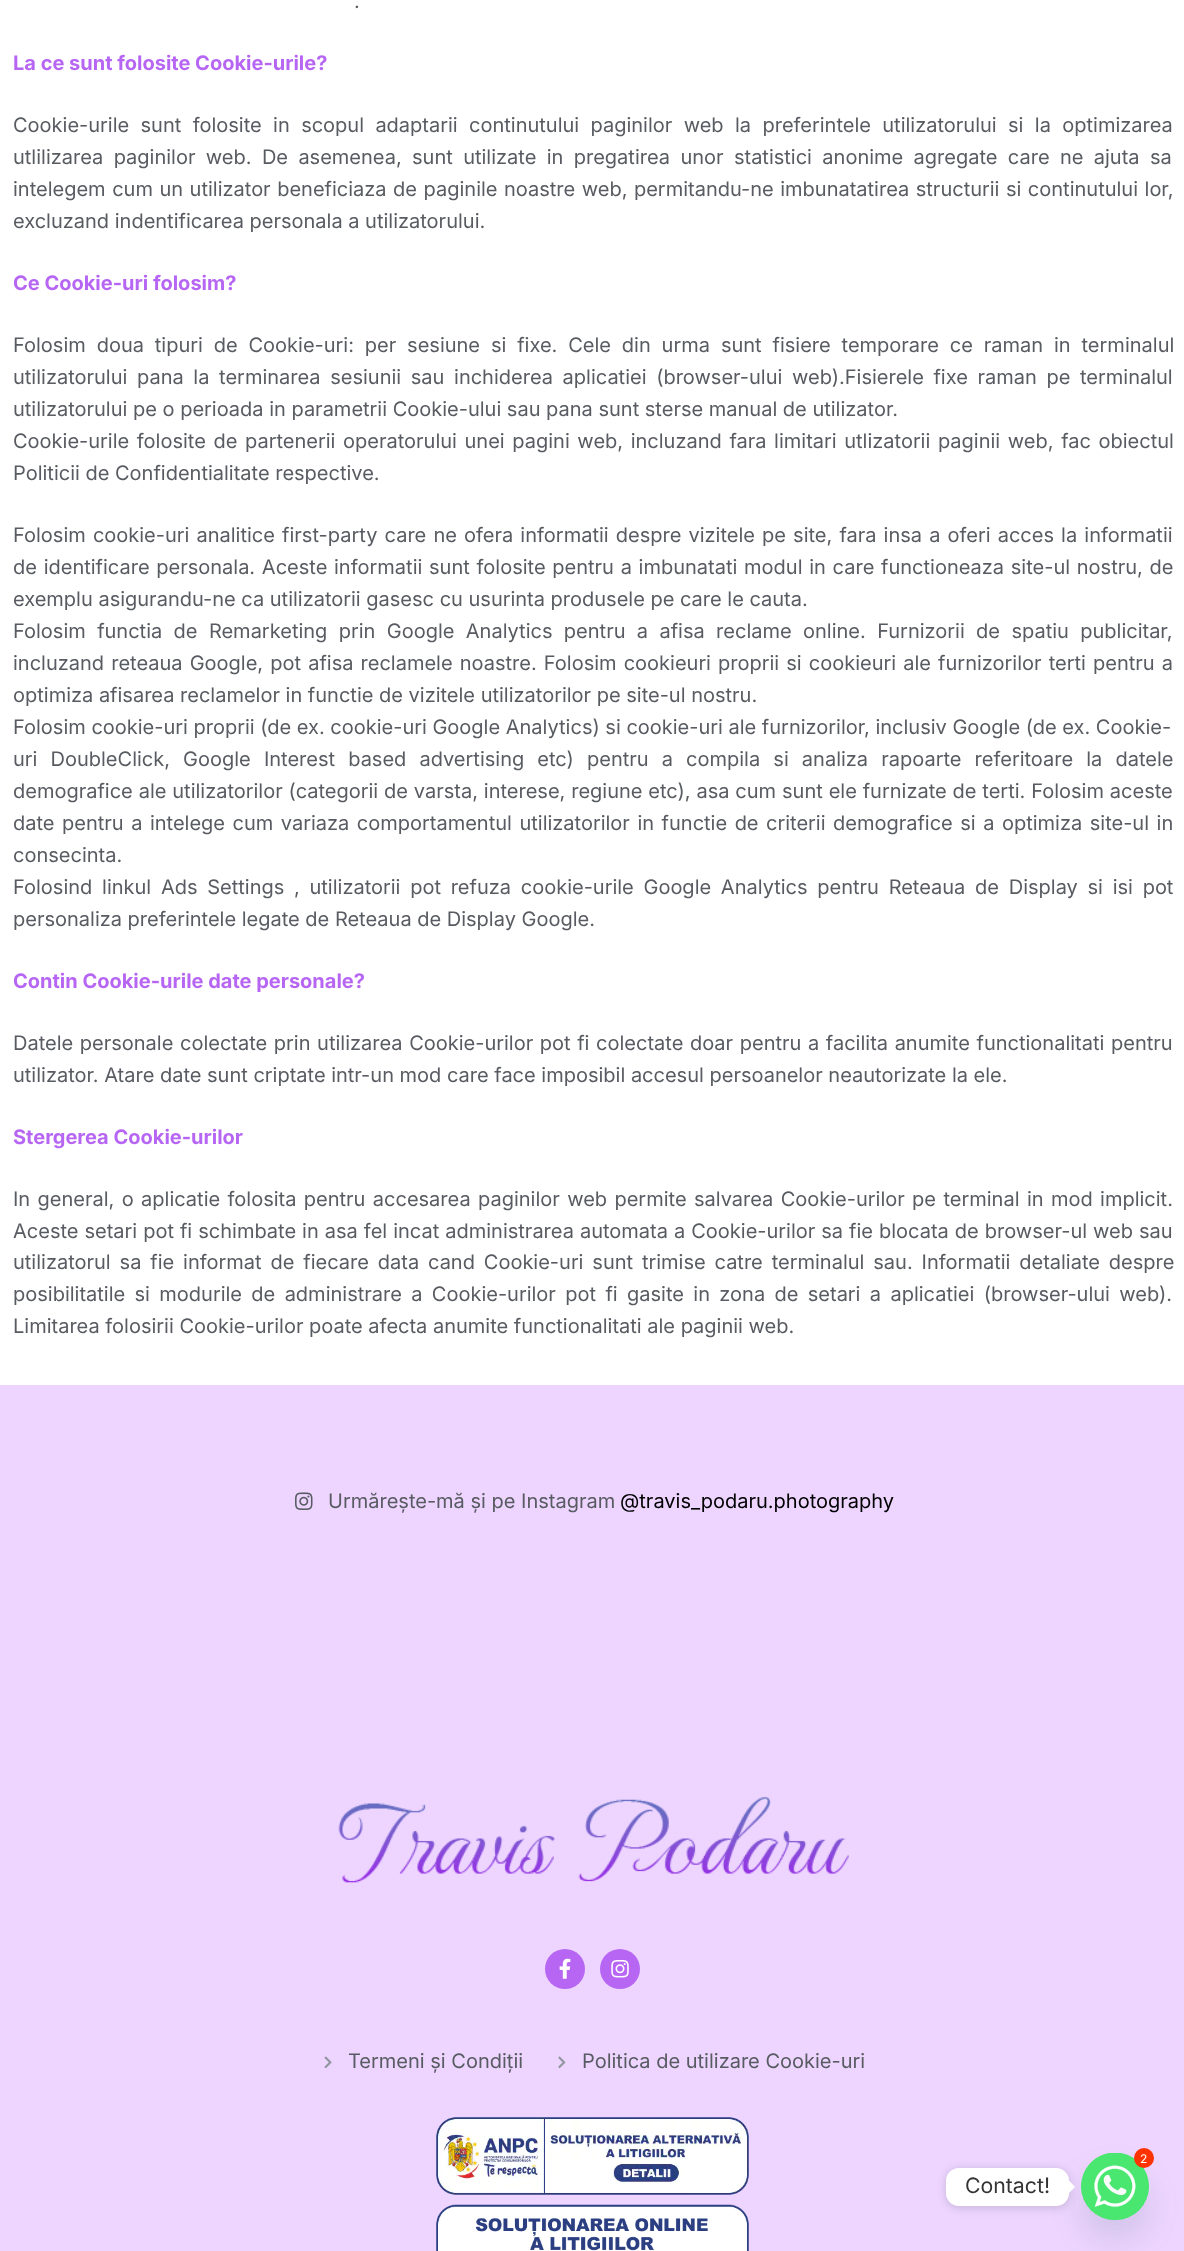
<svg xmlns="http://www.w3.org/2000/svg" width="1184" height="2251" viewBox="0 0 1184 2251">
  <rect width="100%" height="100%" fill="rgb(255,255,255)"/>
  <text x="354" y="8" font-family="Inter" font-size="20" fill="rgb(88,91,97)">.</text>
  <text x="13" y="70" font-family="Inter" font-size="20" font-weight="bold" fill="rgb(183,102,243)">La ce sunt folosite Cookie-urile?</text>
  <g font-family="Inter" font-size="20" fill="rgb(88,91,97)">
    <text>
      <tspan x="13" y="132" word-spacing="5.75">Cookie-urile sunt folosite in scopul adaptarii continutului paginilor web la preferintele utilizatorului si la optimizarea</tspan>
      <tspan x="13" y="164" word-spacing="4.75">utlilizarea paginilor web. De asemenea, sunt utilizate in pregatirea unor statistici anonime agregate care ne ajuta sa</tspan>
      <tspan x="13" y="196" word-spacing="0.9">intelegem cum un utilizator beneficiaza de paginile noastre web, permitandu-ne imbunatatirea structurii si continutului lor,</tspan>
      <tspan x="13" y="228">excluzand indentificarea personala a utilizatorului.</tspan>
    </text>
  </g>
  <text x="13" y="290" font-family="Inter" font-size="20" font-weight="bold" fill="rgb(183,102,243)">Ce Cookie-uri folosim?</text>
  <g font-family="Inter" font-size="20" fill="rgb(88,91,97)">
    <text>
      <tspan x="13" y="352" word-spacing="5.25">Folosim doua tipuri de Cookie-uri: per sesiune si fixe. Cele din urma sunt fisiere temporare ce raman in terminalul</tspan>
      <tspan x="13" y="384" word-spacing="4">utilizatorului pana la terminarea sesiunii sau inchiderea aplicatiei (browser-ului web).Fisierele fixe raman pe terminalul</tspan>
      <tspan x="13" y="416">utilizatorului pe o perioada in parametrii Cookie-ului sau pana sunt sterse manual de utilizator.</tspan>
      <tspan x="13" y="448" word-spacing="2">Cookie-urile folosite de partenerii operatorului unei pagini web, incluzand fara limitari utlizatorii paginii web, fac obiectul</tspan>
      <tspan x="13" y="480">Politicii de Confidentialitate respective.</tspan>
    </text>
    <text>
      <tspan x="13" y="542" word-spacing="1.5">Folosim cookie-uri analitice first-party care ne ofera informatii despre vizitele pe site, fara insa a oferi acces la informatii</tspan>
      <tspan x="13" y="574" word-spacing="1.1">de identificare personala. Aceste informatii sunt folosite pentru a imbunatati modul in care functioneaza site-ul nostru, de</tspan>
      <tspan x="13" y="606">exemplu asigurandu-ne ca utilizatorii gasesc cu usurinta produsele pe care le cauta.</tspan>
      <tspan x="13" y="638" word-spacing="5.75">Folosim functia de Remarketing prin Google Analytics pentru a afisa reclame online. Furnizorii de spatiu publicitar,</tspan>
      <tspan x="13" y="670" word-spacing="1.5">incluzand reteaua Google, pot afisa reclamele noastre. Folosim cookieuri proprii si cookieuri ale furnizorilor terti pentru a</tspan>
      <tspan x="13" y="702">optimiza afisarea reclamelor in functie de vizitele utilizatorilor pe site-ul nostru.</tspan>
      <tspan x="13" y="734">Folosim cookie-uri proprii (de ex. cookie-uri Google Analytics) si cookie-uri ale furnizorilor, inclusiv Google (de ex. Cookie-</tspan>
      <tspan x="13" y="766" word-spacing="7.5">uri DoubleClick, Google Interest based advertising etc) pentru a compila si analiza rapoarte referitoare la datele</tspan>
      <tspan x="13" y="798" word-spacing="0.25">demografice ale utilizatorilor (categorii de varsta, interese, regiune etc), asa cum sunt ele furnizate de terti. Folosim aceste</tspan>
      <tspan x="13" y="830" word-spacing="1.9">date pentru a intelege cum variaza comportamentul utilizatorilor in functie de criterii demografice si a optimiza site-ul in</tspan>
      <tspan x="13" y="862">consecinta.</tspan>
      <tspan x="13" y="894" word-spacing="4.1">Folosind linkul Ads Settings , utilizatorii pot refuza cookie-urile Google Analytics pentru Reteaua de Display si isi pot</tspan>
      <tspan x="13" y="926">personaliza preferintele legate de Reteaua de Display Google.</tspan>
    </text>
  </g>
  <text x="13" y="988" font-family="Inter" font-size="20" font-weight="bold" fill="rgb(183,102,243)">Contin Cookie-urile date personale?</text>
  <g font-family="Inter" font-size="20" fill="rgb(88,91,97)">
    <text>
      <tspan x="13" y="1050" word-spacing="1">Datele personale colectate prin utilizarea Cookie-urilor pot fi colectate doar pentru a facilita anumite functionalitati pentru</tspan>
      <tspan x="13" y="1082">utilizator. Atare date sunt criptate intr-un mod care face imposibil accesul persoanelor neautorizate la ele.</tspan>
    </text>
  </g>
  <text x="13" y="1144" font-family="Inter" font-size="20" font-weight="bold" fill="rgb(183,102,243)">Stergerea Cookie-urilor</text>
  <g font-family="Inter" font-size="20" fill="rgb(88,91,97)">
    <text>
      <tspan x="13" y="1206" word-spacing="1.75">In general, o aplicatie folosita pentru accesarea paginilor web permite salvarea Cookie-urilor pe terminal in mod implicit.</tspan>
      <tspan x="13" y="1238" word-spacing="0.4">Aceste setari pot fi schimbate in asa fel incat administrarea automata a Cookie-urilor sa fie blocata de browser-ul web sau</tspan>
      <tspan x="13" y="1269" word-spacing="3.25">utilizatorul sa fie informat de fiecare data cand Cookie-uri sunt trimise catre terminalul sau. Informatii detaliate despre</tspan>
      <tspan x="13" y="1301" word-spacing="3.75">posibilitatile si modurile de administrare a Cookie-urilor pot fi gasite in zona de setari a aplicatiei (browser-ului web).</tspan>
      <tspan x="13" y="1333">Limitarea folosirii Cookie-urilor poate afecta anumite functionalitati ale paginii web.</tspan>
    </text>
  </g>
  <rect x="0" y="1385" width="1184" height="866" fill="rgb(237,213,255)"/>
  <image x="295" y="1492" width="18" height="18" href="pic1.png"/>
  <text x="328" y="1508" font-family="Inter" font-size="20" fill="rgb(88,91,97)">Urmărește-mă și pe Instagram</text>
  <text x="620" y="1508" font-family="Inter" font-size="20" fill="rgb(0,0,0)">@travis_podaru.photography</text>
  <image x="338" y="1797" width="511" height="86" href="pic2.png"/>
  <circle cx="565" cy="1969" r="20" fill="rgb(183,102,243)"/>
  <image x="559" y="1958" width="12" height="21" href="pic3.png"/>
  <circle cx="620" cy="1969" r="20" fill="rgb(183,102,243)"/>
  <image x="611" y="1960" width="18" height="18" href="pic4.png"/>
  <image x="324" y="2056" width="8" height="13" href="pic5.png"/>
  <text x="348" y="2068" font-family="Inter" font-size="20" fill="rgb(88,91,97)">Termeni și Condiții</text>
  <image x="558" y="2056" width="8" height="13" href="pic6.png"/>
  <text x="582" y="2068" font-family="Inter" font-size="20" fill="rgb(88,91,97)">Politica de utilizare Cookie-uri</text>
  <image x="436" y="2117" width="313" height="78" href="pic7.png"/>
  <image x="436" y="2204" width="313" height="47" href="pic8.png"/>
  <rect x="1081" y="2173" width="68" height="67" rx="33.5" fill="rgba(73,104,126,0.16)" filter="blur(15px)"/>
  <rect x="1081" y="2153" width="68" height="67" rx="33.5" fill="rgb(73,230,112)"/>
  <image x="1081" y="2153" width="68" height="67" href="pic9.png"/>
  <circle cx="1144" cy="2158" r="10" fill="rgb(255,51,0)"/>
  <text x="1140" y="2163" font-family="Inter" font-size="12" fill="rgb(255,255,255)">2</text>
  <rect x="946" y="2169" width="123" height="39" rx="13" fill="rgba(0,0,0,0.15)" filter="blur(5px)"/>
  <rect x="946" y="2168" width="123" height="38" rx="13" fill="rgb(255,255,255)"/>
  <text x="965" y="2193" font-family="Inter" font-size="21.25" fill="rgb(51,51,51)">Contact!</text>
  <path d="M1069 2193V2180.5L1075 2187Z" fill="rgb(255,255,255)"/>
</svg>
